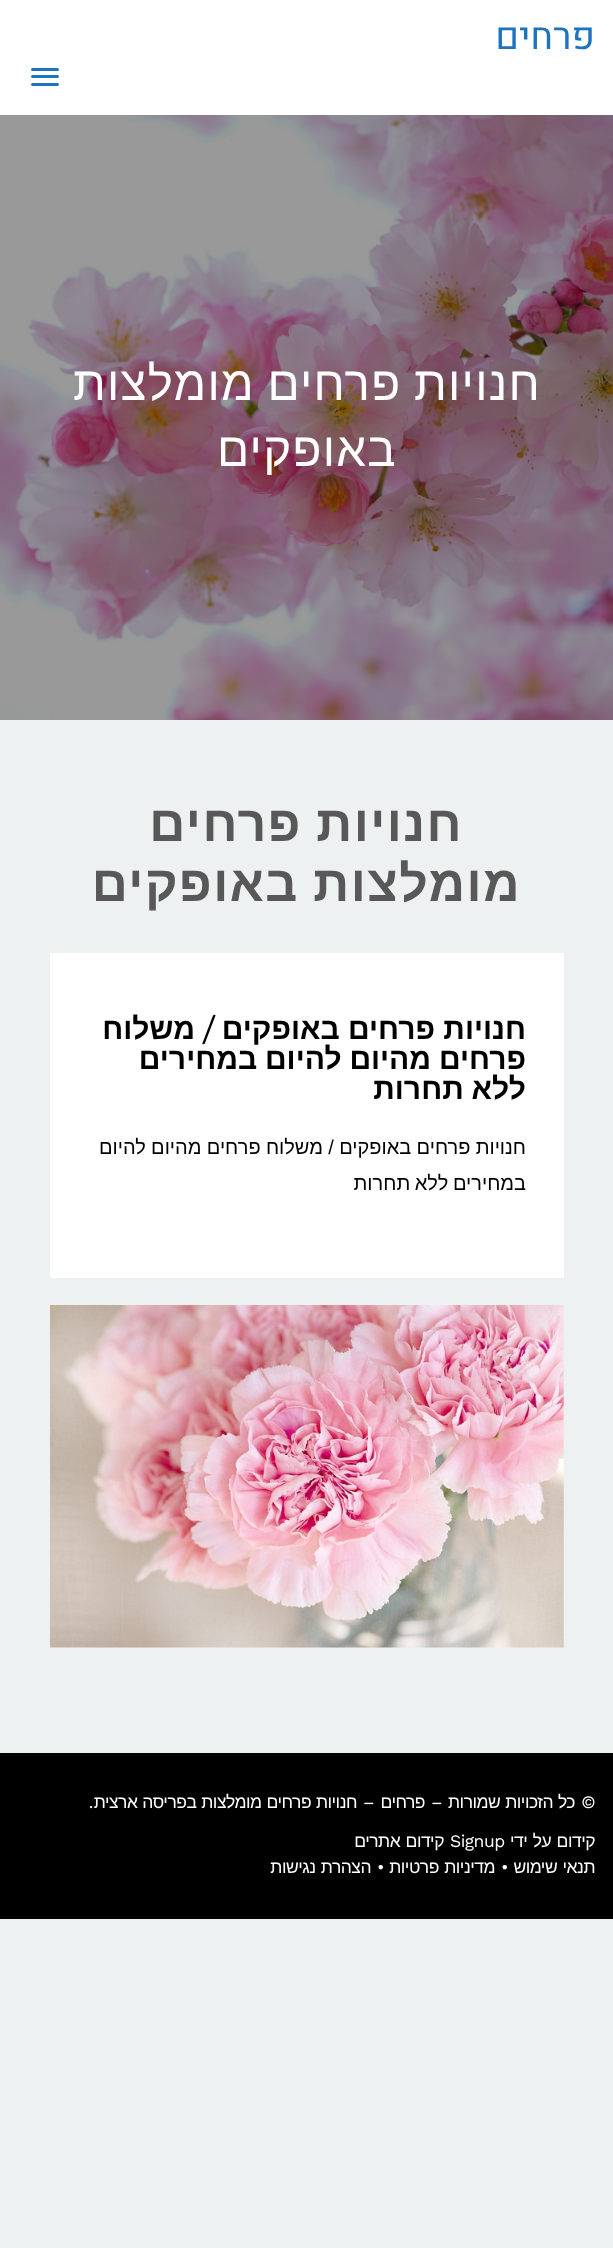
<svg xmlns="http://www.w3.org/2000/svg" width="613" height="2248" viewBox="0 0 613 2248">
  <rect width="100%" height="100%" fill="rgb(238,241,242)"/>
  <rect x="0" y="0" width="613" height="115" fill="rgb(255,255,255)"/>
  <text x="595" y="49" font-family="Heebo" font-size="37.5" direction="rtl" fill="rgb(30,115,190)">פרחים</text>
  <rect x="31" y="68" width="28" height="3" rx="1.5" fill="rgb(30,115,190)"/>
  <rect x="31" y="75" width="28" height="3" rx="1.5" fill="rgb(30,115,190)"/>
  <rect x="31" y="83" width="28" height="3" rx="1.5" fill="rgb(30,115,190)"/>
  <image x="0" y="115" width="613" height="605" href="pic1.png"/>
  <g font-family="Liberation Sans" font-size="47.5" letter-spacing="1.25" direction="rtl" fill="rgb(255,255,255)">
    <text x="541" y="400" word-spacing="-2">חנויות פרחים מומלצות</text>
    <text x="397" y="466">באופקים</text>
  </g>
  <g font-family="Liberation Sans" font-size="50" font-weight="bold" letter-spacing="1.5" direction="rtl" fill="rgb(89,88,88)">
    <text x="463" y="841" word-spacing="-1">חנויות פרחים</text>
    <text x="521" y="901" word-spacing="-1">מומלצות באופקים</text>
  </g>
  <rect x="50" y="953" width="514" height="325" fill="rgb(255,255,255)"/>
  <text x="526" y="1039" font-family="Liberation Sans" font-size="30" font-weight="bold" direction="rtl" fill="rgb(0,0,0)">חנויות פרחים באופקים</text>
  <text x="215" y="1039" font-family="Ovo" font-size="30" font-weight="bold" direction="rtl" fill="rgb(0,0,0)">/</text>
  <g font-family="Liberation Sans" font-size="30" font-weight="bold" direction="rtl" fill="rgb(0,0,0)">
    <text x="195" y="1039">משלוח</text>
    <text>
      <tspan x="526" y="1069" word-spacing="-0.5">פרחים מהיום להיום במחירים</tspan>
      <tspan x="526" y="1099" word-spacing="-0.5">ללא תחרות</tspan>
    </text>
  </g>
  <g font-family="Liberation Sans" font-size="20" direction="rtl" fill="rgb(0,0,0)">
    <text>
      <tspan x="526" y="1154" word-spacing="-0.25">חנויות פרחים באופקים / משלוח פרחים מהיום להיום</tspan>
      <tspan x="526" y="1190" word-spacing="-1">במחירים ללא תחרות</tspan>
    </text>
  </g>
  <image x="50" y="1305" width="514" height="343" href="pic2.png"/>
  <rect x="0" y="1753" width="613" height="166" fill="rgb(0,0,0)"/>
  <text x="595" y="1808" font-family="Work Sans" font-size="17.5" letter-spacing="-0.5" direction="rtl" fill="rgb(255,255,255)">©</text>
  <text x="575" y="1808" word-spacing="0.5" font-family="Liberation Sans" font-size="17.5" letter-spacing="-0.5" direction="rtl" fill="rgb(255,255,255)">כל הזכויות שמורות</text>
  <text x="442" y="1808" font-family="Work Sans" font-size="17.5" letter-spacing="-0.5" direction="rtl" fill="rgb(255,255,255)">–</text>
  <text x="425" y="1808" font-family="Liberation Sans" font-size="17.5" letter-spacing="-0.5" direction="rtl" fill="rgb(255,255,255)">פרחים</text>
  <text x="374" y="1808" font-family="Work Sans" font-size="17.5" letter-spacing="-0.5" direction="rtl" fill="rgb(255,255,255)">–</text>
  <text x="357" y="1808" word-spacing="0.5" font-family="Liberation Sans" font-size="17.5" letter-spacing="-0.5" direction="rtl" fill="rgb(255,255,255)">חנויות פרחים מומלצות בפריסה ארצית</text>
  <text x="93" y="1808" font-family="Work Sans" font-size="17.5" letter-spacing="-0.5" direction="rtl" fill="rgb(255,255,255)">.</text>
  <text x="595" y="1847" word-spacing="1" font-family="Liberation Sans" font-size="17.5" letter-spacing="-0.5" direction="rtl" fill="rgb(255,255,255)">קידום על ידי</text>
  <text x="450" y="1847" font-family="Work Sans" font-size="17.5" letter-spacing="-0.5" fill="rgb(255,255,255)">Signup</text>
  <g font-family="Liberation Sans" font-size="17.5" letter-spacing="-0.5" direction="rtl" fill="rgb(255,255,255)">
    <text x="444" y="1847" word-spacing="1">קידום אתרים</text>
    <text x="595" y="1873" word-spacing="1">תנאי שימוש</text>
  </g>
  <text x="501" y="1873" font-family="Work Sans" font-size="17.5" letter-spacing="-0.5" fill="rgb(255,255,255)">•</text>
  <text x="495" y="1873" word-spacing="1" font-family="Liberation Sans" font-size="17.5" letter-spacing="-0.5" direction="rtl" fill="rgb(255,255,255)">מדיניות פרטיות</text>
  <text x="377" y="1873" font-family="Work Sans" font-size="17.5" letter-spacing="-0.5" fill="rgb(255,255,255)">•</text>
  <text x="371" y="1873" word-spacing="1" font-family="Liberation Sans" font-size="17.5" letter-spacing="-0.5" direction="rtl" fill="rgb(255,255,255)">הצהרת נגישות</text>
</svg>
